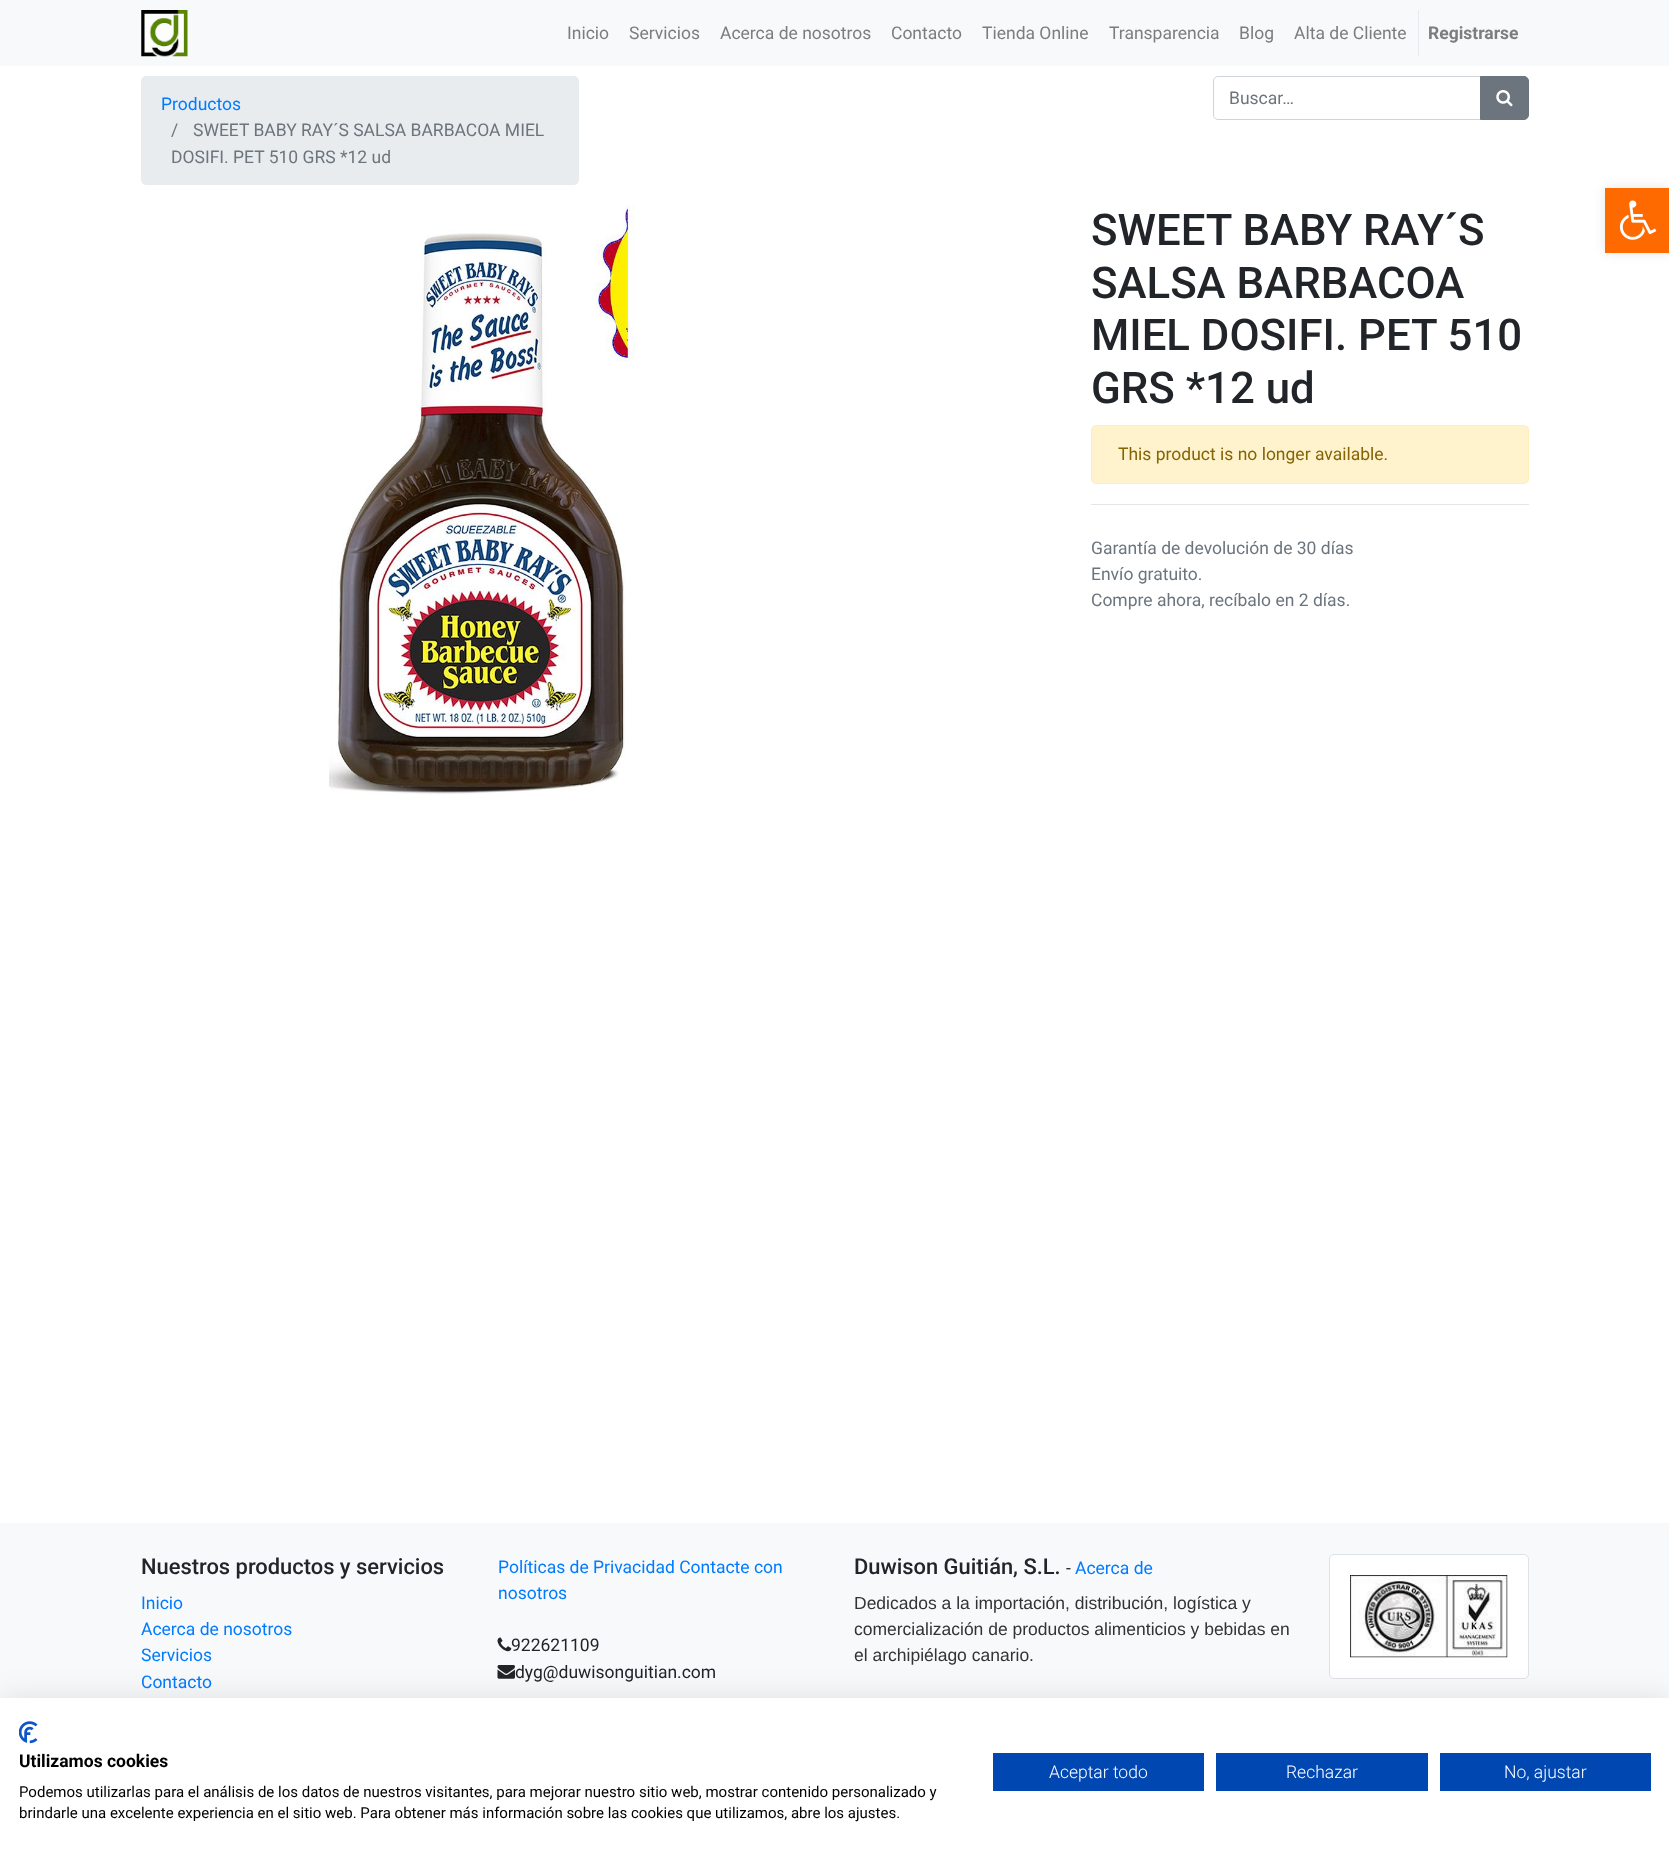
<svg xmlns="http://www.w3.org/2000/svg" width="1669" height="1857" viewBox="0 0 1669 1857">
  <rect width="100%" height="100%" fill="rgb(255,255,255)"/>
  <rect x="0" y="0" width="1669" height="66" fill="rgb(248,249,250)"/>
  <image x="141" y="10" width="47" height="47" href="pic1.png"/>
  <g font-family="Roboto" font-size="17.5" fill="rgb(124,125,125)">
    <text x="567" y="39">Inicio</text>
    <text x="629" y="39">Servicios</text>
    <text x="720" y="39">Acerca de nosotros</text>
    <text x="891" y="39">Contacto</text>
    <text x="982" y="39">Tienda Online</text>
    <text x="1109" y="39">Transparencia</text>
    <text x="1239" y="39">Blog</text>
    <text x="1294" y="39">Alta de Cliente</text>
  </g>
  <rect x="1418" y="10" width="1" height="46" fill="rgb(233,236,239)"/>
  <text x="1428" y="39" font-family="Roboto" font-size="17.5" font-weight="bold" fill="rgb(124,125,125)">Registrarse</text>
  <rect x="141" y="76" width="438" height="109" rx="5" fill="rgb(233,236,239)"/>
  <text x="161" y="110" font-family="Roboto" font-size="17.5" fill="rgb(0,123,255)">Productos</text>
  <g font-family="Roboto" font-size="17.5" fill="rgb(108,117,125)">
    <text x="171" y="136">/</text>
    <text x="193" y="136">SWEET BABY RAY´S SALSA BARBACOA MIEL</text>
    <text x="171" y="163">DOSIFI. PET 510 GRS *12 ud</text>
  </g>
  <path d="M1218 76.5H1480.5V119.5H1218C1215.5 119.5 1213.5 117.5 1213.5 115V81C1213.5 78.5 1215.5 76.5 1218 76.5Z" fill="none" stroke="rgb(206,212,218)"/>
  <text x="1229" y="104" font-family="Roboto" font-size="17.5" fill="rgb(108,117,125)">Buscar…</text>
  <path d="M1480.5 76.5H1524C1526.5 76.5 1528.5 78.5 1528.5 81V115C1528.5 117.5 1526.5 119.5 1524 119.5H1480.5Z" fill="rgb(108,117,125)" stroke="rgb(108,117,125)"/>
  <image x="1496" y="90" width="17" height="17" href="pic2.png"/>
  <image x="329" y="205" width="306" height="590" href="pic3.png"/>
  <g font-family="Roboto" font-size="43.75" font-weight="500" fill="rgb(33,37,41)">
    <text>
      <tspan x="1091" y="245">SWEET BABY RAY´S</tspan>
      <tspan x="1091" y="298">SALSA BARBACOA</tspan>
      <tspan x="1091" y="350">MIEL DOSIFI. PET 510</tspan>
      <tspan x="1091" y="403">GRS *12 ud</tspan>
    </text>
  </g>
  <rect x="1091.5" y="425.5" width="437" height="58" rx="4.5" fill="rgb(255,243,205)" stroke="rgb(255,238,186)"/>
  <text x="1118" y="460" font-family="Roboto" font-size="17.5" fill="rgb(133,100,4)">This product is no longer available.</text>
  <rect x="1091" y="504" width="438" height="1" fill="rgb(230,230,230)"/>
  <g font-family="Roboto" font-size="17.5" fill="rgb(108,117,125)">
    <text>
      <tspan x="1091" y="554">Garantía de devolución de 30 días</tspan>
      <tspan x="1091" y="580">Envío gratuito.</tspan>
      <tspan x="1091" y="606">Compre ahora, recíbalo en 2 días.</tspan>
    </text>
  </g>
  <rect x="0" y="1523" width="1669" height="175" fill="rgb(248,249,250)"/>
  <text x="141" y="1574" font-family="Roboto" font-size="21.9" font-weight="500" fill="rgb(33,37,41)">Nuestros productos y servicios</text>
  <g font-family="Roboto" font-size="17.5" fill="rgb(0,123,255)">
    <text>
      <tspan x="141" y="1609">Inicio</tspan>
      <tspan x="141" y="1635">Acerca de nosotros</tspan>
      <tspan x="141" y="1661">Servicios</tspan>
      <tspan x="141" y="1688">Contacto</tspan>
    </text>
    <text>
      <tspan x="498" y="1573">Políticas de Privacidad Contacte con</tspan>
      <tspan x="498" y="1599">nosotros</tspan>
    </text>
  </g>
  <image x="497" y="1637" width="15" height="15" href="pic4.png"/>
  <text x="511" y="1651" font-family="Roboto" font-size="17.5" fill="rgb(33,37,41)">922621109</text>
  <image x="497" y="1665" width="18" height="14" href="pic5.png"/>
  <text x="515" y="1678" font-family="Roboto" font-size="17.5" fill="rgb(33,37,41)">dyg@duwisonguitian.com</text>
  <text x="854" y="1574" font-family="Roboto" font-size="21.9" font-weight="500" fill="rgb(33,37,41)">Duwison Guitián, S.L.</text>
  <text x="1066" y="1574" font-family="Roboto" font-size="17.5" fill="rgb(33,37,41)">-</text>
  <text x="1075" y="1574" font-family="Roboto" font-size="17.5" fill="rgb(0,123,255)">Acerca de</text>
  <g font-family="Liberation Sans" font-size="17.5" fill="rgb(51,51,51)">
    <text>
      <tspan x="854" y="1609">Dedicados a la importación, distribución, logística y</tspan>
      <tspan x="854" y="1635">comercialización de productos alimenticios y bebidas en</tspan>
      <tspan x="854" y="1661">el archipiélago canario.</tspan>
    </text>
  </g>
  <rect x="1329.5" y="1554.5" width="199" height="124" rx="4.5" fill="rgb(255,255,255)" stroke="rgb(222,226,230)"/>
  <image x="1350" y="1575" width="158" height="83" href="pic6.png"/>
  <rect x="1605" y="188" width="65" height="65" fill="rgba(0,0,0,0.1)" filter="blur(6px)"/>
  <rect x="1605" y="188" width="64" height="65" fill="rgb(255,106,0)"/>
  <image x="1619" y="200" width="38" height="40" href="pic7.png"/>
  <rect x="0" y="1698" width="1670" height="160" fill="rgba(0,0,0,0.1)" filter="blur(15px)"/>
  <rect x="0" y="1698" width="1669" height="159" fill="rgb(255,255,255)"/>
  <image x="19" y="1721" width="19" height="23" href="pic8.png"/>
  <text x="19" y="1767" font-family="Roboto" font-size="17.5" font-weight="bold" fill="rgb(0,0,0)">Utilizamos cookies</text>
  <g font-family="Roboto" font-size="15" fill="rgb(0,0,0)">
    <text>
      <tspan x="19" y="1797">Podemos utilizarlas para el análisis de los datos de nuestros visitantes, para mejorar nuestro sitio web, mostrar contenido personalizado y</tspan>
      <tspan x="19" y="1818">brindarle una excelente experiencia en el sitio web. Para obtener más información sobre las cookies que utilizamos, abre los ajustes.</tspan>
    </text>
  </g>
  <rect x="993" y="1753" width="211" height="38" fill="rgb(0,71,178)"/>
  <text x="1049" y="1778" font-family="Roboto" font-size="17.5" font-weight="300" fill="rgb(255,255,255)">Aceptar todo</text>
  <rect x="1216" y="1753" width="212" height="38" fill="rgb(0,71,178)"/>
  <text x="1286" y="1778" font-family="Roboto" font-size="17.5" font-weight="300" fill="rgb(255,255,255)">Rechazar</text>
  <rect x="1440" y="1753" width="211" height="38" fill="rgb(0,71,178)"/>
  <text x="1504" y="1778" font-family="Roboto" font-size="17.5" font-weight="300" fill="rgb(255,255,255)">No, ajustar</text>
</svg>
